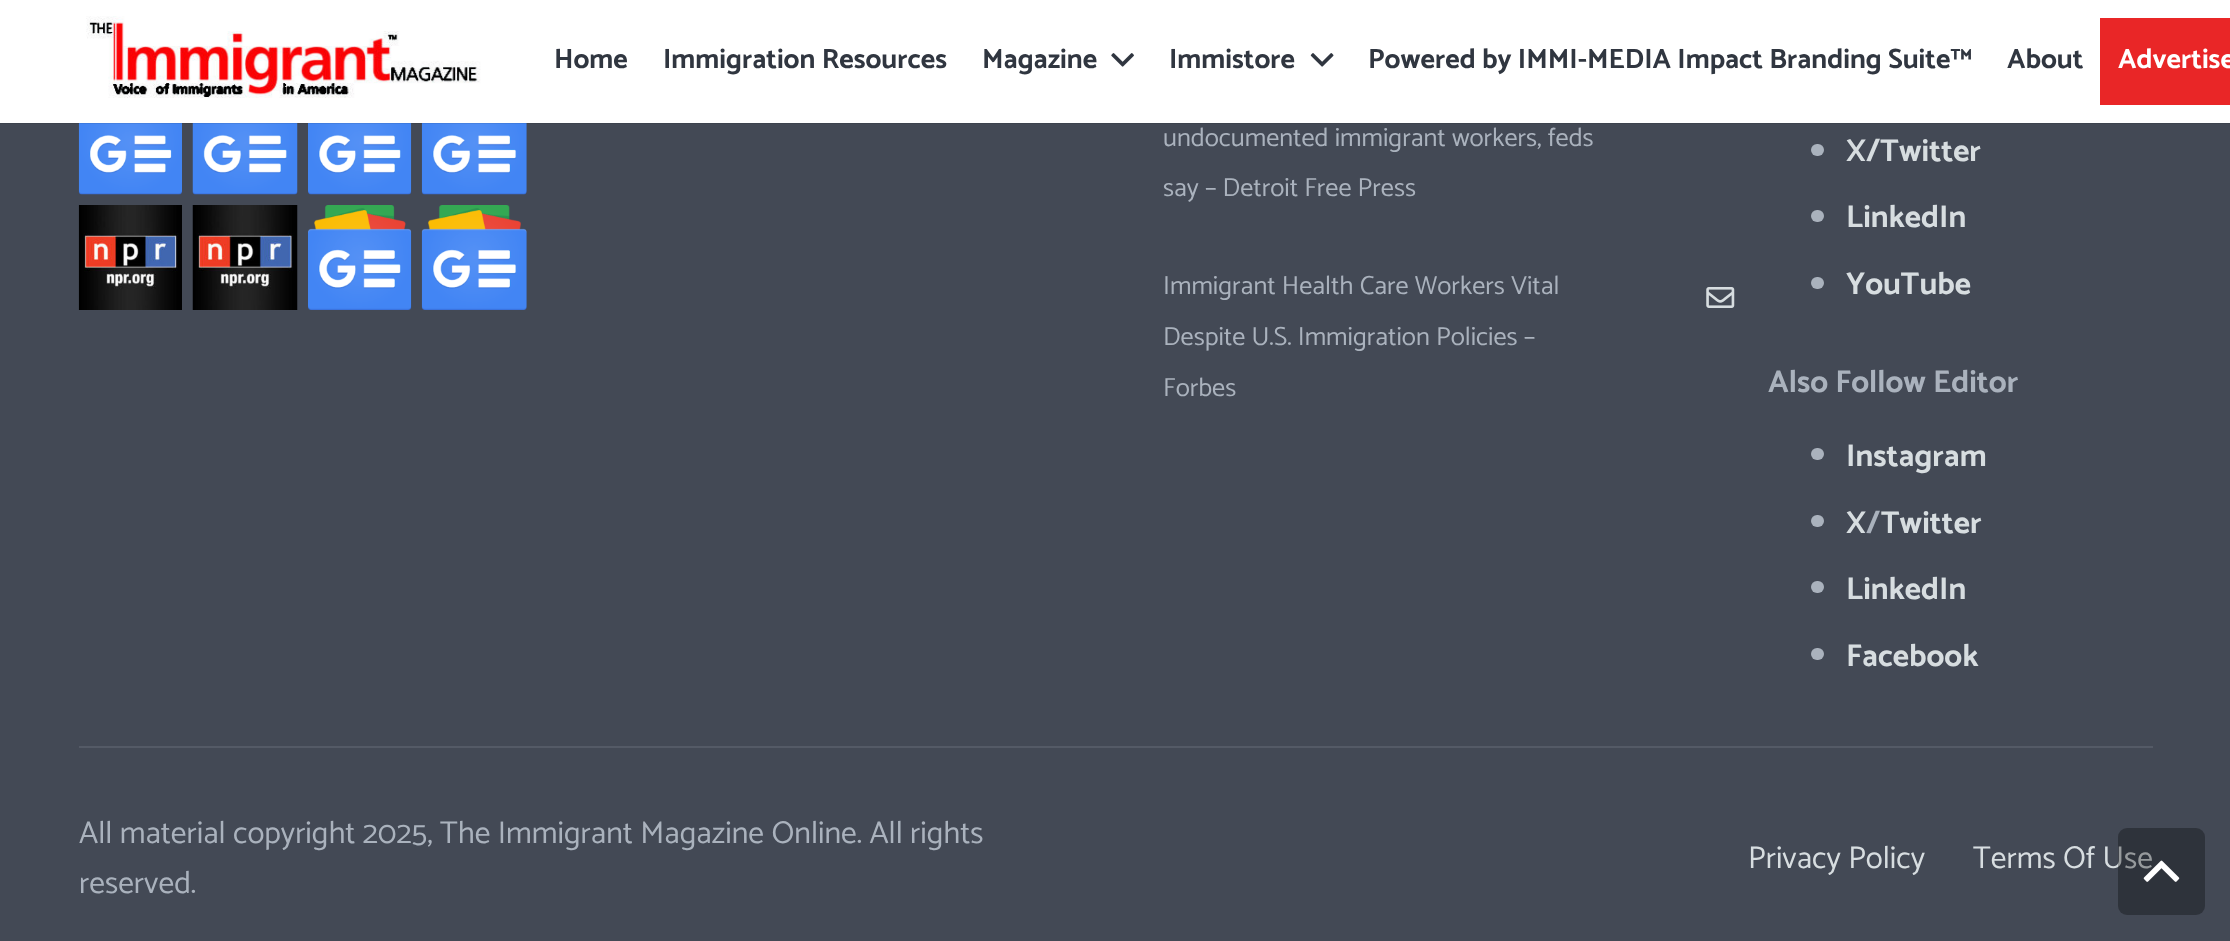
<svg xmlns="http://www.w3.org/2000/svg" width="2230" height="941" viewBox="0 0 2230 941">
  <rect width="100%" height="100%" fill="rgb(67,73,85)"/>
  <image x="78" y="123" width="104" height="72" href="pic4.png"/>
  <image x="192" y="123" width="106" height="72" href="pic5.png"/>
  <image x="308" y="123" width="104" height="72" href="pic6.png"/>
  <image x="421" y="123" width="106" height="72" href="pic7.png"/>
  <rect x="0" y="123" width="2230" height="1" fill="rgba(0,0,0,0.08)"/>
  <rect x="0" y="0" width="2230" height="123" fill="rgb(255,255,255)"/>
  <image x="86" y="16" width="395" height="82" href="pic1.png"/>
  <g font-family="Catamaran" font-size="28" font-weight="bold" fill="rgb(48,54,64)">
    <text x="554" y="68">Home</text>
    <text x="663" y="68">Immigration Resources</text>
    <text x="982" y="68">Magazine</text>
  </g>
  <image x="1111" y="53" width="23" height="14" href="pic2.png"/>
  <text x="1169" y="68" font-family="Catamaran" font-size="28" font-weight="bold" fill="rgb(48,54,64)">Immistore</text>
  <image x="1310" y="53" width="24" height="14" href="pic3.png"/>
  <g font-family="Catamaran" font-size="28" font-weight="bold" fill="rgb(48,54,64)">
    <text x="1368" y="68">Powered by IMMI-MEDIA Impact Branding Suite™</text>
    <text x="2007" y="68">About</text>
  </g>
  <rect x="2100" y="18" width="130" height="87" fill="rgb(233,38,39)"/>
  <text x="2118" y="68" font-family="Catamaran" font-size="28" font-weight="bold" fill="rgb(255,255,255)">Advertise</text>
  <image x="78" y="205" width="104" height="105" href="pic8.png"/>
  <image x="192" y="205" width="106" height="105" href="pic9.png"/>
  <image x="308" y="205" width="104" height="105" href="pic10.png"/>
  <image x="421" y="205" width="106" height="105" href="pic11.png"/>
  <g font-family="Catamaran" font-size="26.25" fill="rgb(170,178,189)">
    <text>
      <tspan x="1163" y="146">undocumented immigrant workers, feds</tspan>
      <tspan x="1163" y="196">say – Detroit Free Press</tspan>
    </text>
    <text>
      <tspan x="1163" y="294">Immigrant Health Care Workers Vital</tspan>
      <tspan x="1163" y="345">Despite U.S. Immigration Policies –</tspan>
      <tspan x="1163" y="396">Forbes</tspan>
    </text>
  </g>
  <image x="1706" y="287" width="29" height="21" href="pic12.png"/>
  <rect x="1811" y="144" width="13" height="12" rx="6" fill="rgb(170,178,189)"/>
  <text x="1846" y="161" font-family="Catamaran" font-size="31.5" font-weight="bold" fill="rgb(215,221,224)">X/Twitter</text>
  <rect x="1811" y="210" width="13" height="12" rx="6" fill="rgb(170,178,189)"/>
  <text x="1846" y="227" font-family="Catamaran" font-size="31.5" font-weight="bold" fill="rgb(215,221,224)">LinkedIn</text>
  <rect x="1811" y="277" width="13" height="12" rx="6" fill="rgb(170,178,189)"/>
  <text x="1846" y="294" font-family="Catamaran" font-size="31.5" font-weight="bold" fill="rgb(215,221,224)">YouTube</text>
  <text x="1768" y="392" font-family="Catamaran" font-size="31.5" font-weight="bold" fill="rgb(170,178,189)">Also Follow Editor</text>
  <rect x="1811" y="448" width="13" height="12" rx="6" fill="rgb(170,178,189)"/>
  <text x="1846" y="466" font-family="Catamaran" font-size="31.5" font-weight="bold" fill="rgb(215,221,224)">Instagram</text>
  <rect x="1811" y="515" width="13" height="12" rx="6" fill="rgb(170,178,189)"/>
  <text x="1846" y="533" font-family="Catamaran" font-size="31.5" font-weight="bold" fill="rgb(215,221,224)">X</text>
  <text x="1866" y="533" font-family="Catamaran" font-size="31.5" font-weight="bold" fill="rgb(170,178,189)">/</text>
  <text x="1881" y="533" font-family="Catamaran" font-size="31.5" font-weight="bold" fill="rgb(215,221,224)">Twitter</text>
  <rect x="1811" y="581" width="13" height="12" rx="6" fill="rgb(170,178,189)"/>
  <text x="1846" y="599" font-family="Catamaran" font-size="31.5" font-weight="bold" fill="rgb(215,221,224)">LinkedIn</text>
  <rect x="1811" y="648" width="13" height="12" rx="6" fill="rgb(170,178,189)"/>
  <text x="1846" y="666" font-family="Catamaran" font-size="31.5" font-weight="bold" fill="rgb(215,221,224)">Facebook</text>
  <rect x="79" y="746" width="2074" height="2" fill="rgb(84,90,102)"/>
  <g font-family="Catamaran" font-size="31.5" fill="rgb(170,178,189)">
    <text>
      <tspan x="79" y="843">All material copyright 2025, The Immigrant Magazine Online. All rights</tspan>
      <tspan x="79" y="893">reserved.</tspan>
    </text>
  </g>
  <g font-family="Catamaran" font-size="31.5" fill="rgb(215,221,224)">
    <text x="1748" y="868">Privacy Policy</text>
    <text x="1973" y="868">Terms Of Use</text>
  </g>
  <rect x="2118" y="828" width="87" height="87" rx="9" fill="rgba(0,0,0,0.3)"/>
  <image x="2143" y="860" width="37" height="22" href="pic13.png"/>
</svg>
